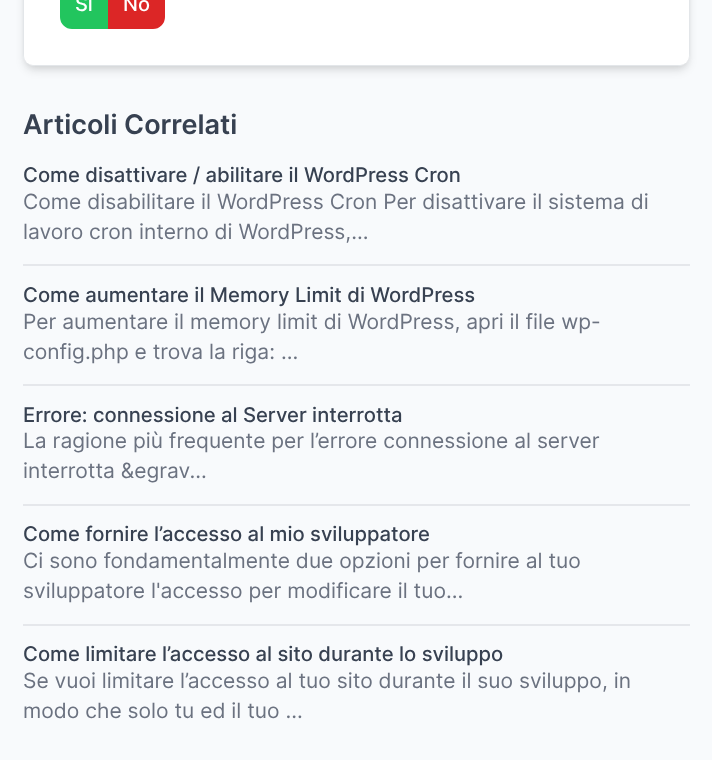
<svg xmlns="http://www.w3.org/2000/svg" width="712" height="760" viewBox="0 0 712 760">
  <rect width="100%" height="100%" fill="rgb(248,250,252)"/>
  <rect x="26" y="-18" width="661" height="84" rx="9" fill="rgba(0,0,0,0.1)" filter="blur(3px)"/>
  <rect x="24" y="-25" width="665" height="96" rx="11" fill="rgba(0,0,0,0.1)" filter="blur(4.5px)"/>
  <rect x="23" y="-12" width="667" height="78" rx="12" fill="rgb(255,255,255)"/>
  <rect x="24" y="-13" width="665" height="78" rx="11" fill="none" stroke="rgba(209,213,219,0.6)" stroke-width="2"/>
  <rect x="24" y="-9" width="665" height="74" rx="9" fill="rgb(255,255,255)"/>
  <path d="M72-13H107V28H72C66 28 61 23 61 17V-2C61-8 66-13 72-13Z" fill="rgb(34,197,94)" stroke="rgb(34,197,94)" stroke-width="2"/>
  <text x="75" y="11" font-family="Inter" font-size="20" font-weight="500" fill="rgb(255,255,255)">Si</text>
  <path d="M109-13H153C159-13 164-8 164-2V17C164 23 159 28 153 28H109Z" fill="rgb(220,38,38)" stroke="rgb(220,38,38)" stroke-width="2"/>
  <text x="123" y="11" font-family="Inter" font-size="20" font-weight="500" fill="rgb(255,255,255)">No</text>
  <text x="23" y="134" font-family="Inter" font-size="27" font-weight="600" fill="rgb(55,65,81)">Articoli Correlati</text>
  <text x="23" y="182" font-family="Inter" font-size="20.25" font-weight="500" fill="rgb(55,65,81)">Come disattivare / abilitare il WordPress Cron</text>
  <g font-family="Inter" font-size="21" fill="rgb(107,114,128)">
    <text>
      <tspan x="23" y="209">Come disabilitare il WordPress Cron Per disattivare il sistema di</tspan>
      <tspan x="23" y="239">lavoro cron interno di WordPress,...</tspan>
    </text>
  </g>
  <rect x="23" y="264" width="667" height="2" fill="rgb(229,231,235)"/>
  <text x="23" y="302" font-family="Inter" font-size="20.25" font-weight="500" fill="rgb(55,65,81)">Come aumentare il Memory Limit di WordPress</text>
  <g font-family="Inter" font-size="21" fill="rgb(107,114,128)">
    <text>
      <tspan x="23" y="329">Per aumentare il memory limit di WordPress, apri il file wp-</tspan>
      <tspan x="23" y="359">config.php e trova la riga: ...</tspan>
    </text>
  </g>
  <rect x="23" y="384" width="667" height="2" fill="rgb(229,231,235)"/>
  <text x="23" y="422" font-family="Inter" font-size="20.25" font-weight="500" fill="rgb(55,65,81)">Errore: connessione al Server interrotta</text>
  <g font-family="Inter" font-size="21" fill="rgb(107,114,128)">
    <text>
      <tspan x="23" y="448">La ragione più frequente per l’errore connessione al server</tspan>
      <tspan x="23" y="478">interrotta &amp;egrav...</tspan>
    </text>
  </g>
  <rect x="23" y="504" width="667" height="2" fill="rgb(229,231,235)"/>
  <text x="23" y="541" font-family="Inter" font-size="20.25" font-weight="500" fill="rgb(55,65,81)">Come fornire l’accesso al mio sviluppatore</text>
  <g font-family="Inter" font-size="21" fill="rgb(107,114,128)">
    <text>
      <tspan x="23" y="568">Ci sono fondamentalmente due opzioni per fornire al tuo</tspan>
      <tspan x="23" y="598">sviluppatore l'accesso per modificare il tuo...</tspan>
    </text>
  </g>
  <rect x="23" y="624" width="667" height="2" fill="rgb(229,231,235)"/>
  <text x="23" y="661" font-family="Inter" font-size="20.25" font-weight="500" fill="rgb(55,65,81)">Come limitare l’accesso al sito durante lo sviluppo</text>
  <g font-family="Inter" font-size="21" fill="rgb(107,114,128)">
    <text>
      <tspan x="23" y="688">Se vuoi limitare l’accesso al tuo sito durante il suo sviluppo, in</tspan>
      <tspan x="23" y="718">modo che solo tu ed il tuo ...</tspan>
    </text>
  </g>
</svg>
